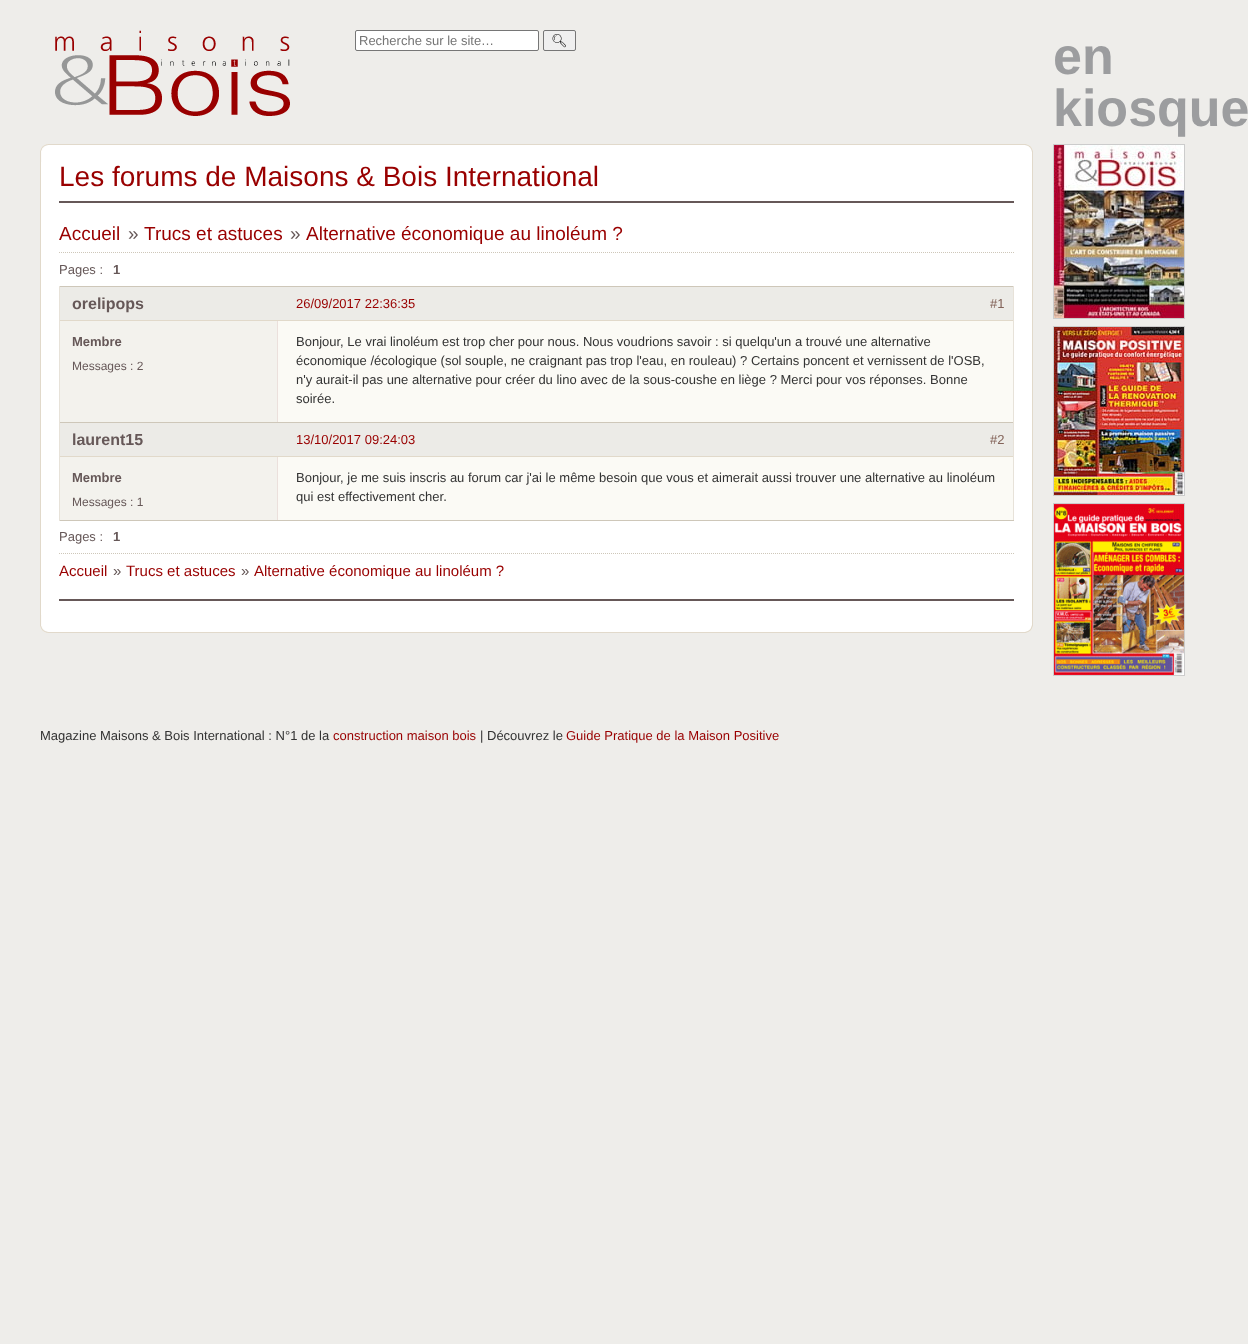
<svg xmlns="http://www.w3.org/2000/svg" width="1248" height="1344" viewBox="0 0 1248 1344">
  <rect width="100%" height="100%" fill="rgb(238,237,234)"/>
  <image x="55" y="30" width="235" height="86" href="pic1.png"/>
  <rect x="355.5" y="30.5" width="183" height="20" rx="1.5" fill="rgb(255,255,255)" stroke="rgb(118,118,118)"/>
  <text x="359" y="45" font-family="Liberation Sans" font-size="13" fill="rgb(117,117,117)">Recherche sur le site…</text>
  <rect x="543.5" y="30.5" width="32" height="20" rx="1.5" fill="rgb(239,239,239)" stroke="rgb(118,118,118)"/>
  <text x="551" y="45" font-family="Noto Emoji" font-size="13" fill="rgb(0,0,0)">🔍︎</text>
  <g font-family="Liberation Sans" font-size="52" font-weight="bold" fill="rgb(156,157,159)">
    <text>
      <tspan x="1053" y="74">en</tspan>
      <tspan x="1053" y="126">kiosque</tspan>
    </text>
  </g>
  <rect x="41" y="162" width="991" height="453" fill="rgb(255,255,255)"/>
  <rect x="40.5" y="144.5" width="992" height="487" fill="none" stroke="rgb(225,217,202)"/>
  <image x="40" y="144" width="985" height="18" href="pic2.png"/>
  <image x="1025" y="144" width="8" height="18" href="pic3.png"/>
  <text x="59" y="186" font-family="Liberation Sans" font-size="28" fill="rgb(153,0,0)">Les forums de Maisons &amp; Bois International</text>
  <rect x="59" y="201" width="955" height="2" fill="rgb(102,88,88)"/>
  <rect x="59" y="599" width="955" height="2" fill="rgb(102,88,88)"/>
  <text x="59" y="240" font-family="Liberation Sans" font-size="19" fill="rgb(153,0,0)">Accueil</text>
  <text x="128" y="240" font-family="Liberation Sans" font-size="19" fill="rgb(102,88,88)">»</text>
  <text x="144" y="240" font-family="Liberation Sans" font-size="19" fill="rgb(153,0,0)">Trucs et astuces</text>
  <text x="290" y="240" font-family="Liberation Sans" font-size="19" fill="rgb(102,88,88)">»</text>
  <text x="306" y="240" font-family="Liberation Sans" font-size="19" fill="rgb(153,0,0)">Alternative économique au linoléum ?</text>
  <path d="M59 252.5H1014" fill="none" stroke="rgb(206,199,185)" stroke-dasharray="1 1"/>
  <text x="59" y="274" font-family="Liberation Sans" font-size="13" fill="rgb(102,88,88)">Pages :</text>
  <text x="113" y="274" font-family="Liberation Sans" font-size="13" font-weight="bold" fill="rgb(102,88,88)">1</text>
  <rect x="60" y="321" width="217" height="101" fill="rgb(243,242,237)"/>
  <rect x="59" y="286" width="955" height="1" fill="rgb(206,199,185)"/>
  <rect x="1013" y="286" width="1" height="137" fill="rgb(231,226,217)"/>
  <rect x="59" y="286" width="1" height="137" fill="rgb(231,226,217)"/>
  <rect x="278" y="321" width="735" height="101" fill="rgb(251,250,245)"/>
  <rect x="277" y="321" width="1" height="101" fill="rgb(235,224,220)"/>
  <rect x="60" y="287" width="953" height="33" fill="rgb(236,235,231)"/>
  <text x="72" y="309" font-family="Liberation Sans" font-size="16" font-weight="bold" fill="rgb(102,88,88)">orelipops</text>
  <text x="72" y="346" font-family="Liberation Sans" font-size="13" font-weight="bold" fill="rgb(102,88,88)">Membre</text>
  <text x="72" y="370" font-family="Liberation Sans" font-size="12" fill="rgb(102,88,88)">Messages : 2</text>
  <g font-family="Liberation Sans" font-size="13" fill="rgb(51,51,51)">
    <text>
      <tspan x="296" y="346">Bonjour, Le vrai linoléum est trop cher pour nous. Nous voudrions savoir : si quelqu'un a trouvé une alternative</tspan>
      <tspan x="296" y="365">économique /écologique (sol souple, ne craignant pas trop l'eau, en rouleau) ? Certains poncent et vernissent de l'OSB,</tspan>
      <tspan x="296" y="384">n'y aurait-il pas une alternative pour créer du lino avec de la sous-coushe en liège ? Merci pour vos réponses. Bonne</tspan>
      <tspan x="296" y="403">soirée.</tspan>
    </text>
  </g>
  <rect x="60" y="320" width="953" height="1" fill="rgb(225,217,202)"/>
  <text x="296" y="308" font-family="Liberation Sans" font-size="13" fill="rgb(153,0,0)">26/09/2017 22:36:35</text>
  <text x="990" y="308" font-family="Liberation Sans" font-size="13" fill="rgb(131,99,89)">#1</text>
  <rect x="60" y="457" width="217" height="63" fill="rgb(243,242,237)"/>
  <rect x="59" y="422" width="955" height="1" fill="rgb(206,199,185)"/>
  <rect x="1013" y="422" width="1" height="99" fill="rgb(231,226,217)"/>
  <rect x="59" y="520" width="955" height="1" fill="rgb(206,199,185)"/>
  <rect x="59" y="422" width="1" height="99" fill="rgb(231,226,217)"/>
  <rect x="278" y="457" width="735" height="63" fill="rgb(251,250,245)"/>
  <rect x="277" y="457" width="1" height="63" fill="rgb(235,224,220)"/>
  <rect x="60" y="423" width="953" height="33" fill="rgb(236,235,231)"/>
  <text x="72" y="445" font-family="Liberation Sans" font-size="16" font-weight="bold" fill="rgb(102,88,88)">laurent15</text>
  <text x="72" y="482" font-family="Liberation Sans" font-size="13" font-weight="bold" fill="rgb(102,88,88)">Membre</text>
  <text x="72" y="506" font-family="Liberation Sans" font-size="12" fill="rgb(102,88,88)">Messages : 1</text>
  <g font-family="Liberation Sans" font-size="13" fill="rgb(51,51,51)">
    <text>
      <tspan x="296" y="482">Bonjour, je me suis inscris au forum car j'ai le même besoin que vous et aimerait aussi trouver une alternative au linoléum</tspan>
      <tspan x="296" y="501">qui est effectivement cher.</tspan>
    </text>
  </g>
  <rect x="60" y="456" width="953" height="1" fill="rgb(225,217,202)"/>
  <text x="296" y="444" font-family="Liberation Sans" font-size="13" fill="rgb(153,0,0)">13/10/2017 09:24:03</text>
  <text x="990" y="444" font-family="Liberation Sans" font-size="13" fill="rgb(131,99,89)">#2</text>
  <path d="M59 553.5H1014" fill="none" stroke="rgb(206,199,185)" stroke-dasharray="1 1"/>
  <text x="59" y="541" font-family="Liberation Sans" font-size="13" fill="rgb(102,88,88)">Pages :</text>
  <text x="113" y="541" font-family="Liberation Sans" font-size="13" font-weight="bold" fill="rgb(102,88,88)">1</text>
  <text x="59" y="576" font-family="Liberation Sans" font-size="15" fill="rgb(153,0,0)">Accueil</text>
  <text x="113" y="576" font-family="Liberation Sans" font-size="15" fill="rgb(102,88,88)">»</text>
  <text x="126" y="576" font-family="Liberation Sans" font-size="15" fill="rgb(153,0,0)">Trucs et astuces</text>
  <text x="241" y="576" font-family="Liberation Sans" font-size="15" fill="rgb(102,88,88)">»</text>
  <text x="254" y="576" font-family="Liberation Sans" font-size="15" fill="rgb(153,0,0)">Alternative économique au linoléum ?</text>
  <image x="40" y="615" width="985" height="18" href="pic4.png"/>
  <image x="1025" y="615" width="8" height="18" href="pic5.png"/>
  <image x="1053" y="144" width="132" height="532" href="pic6.png"/>
  <text x="40" y="740" font-family="Liberation Sans" font-size="13" fill="rgb(51,51,51)">Magazine Maisons &amp; Bois International : N°1 de la</text>
  <text x="333" y="740" font-family="Liberation Sans" font-size="13" fill="rgb(153,0,0)">construction maison bois</text>
  <text x="480" y="740" font-family="Liberation Sans" font-size="13" fill="rgb(51,51,51)">| Découvrez le</text>
  <text x="566" y="740" font-family="Liberation Sans" font-size="13" fill="rgb(153,0,0)">Guide Pratique de la Maison Positive</text>
</svg>
